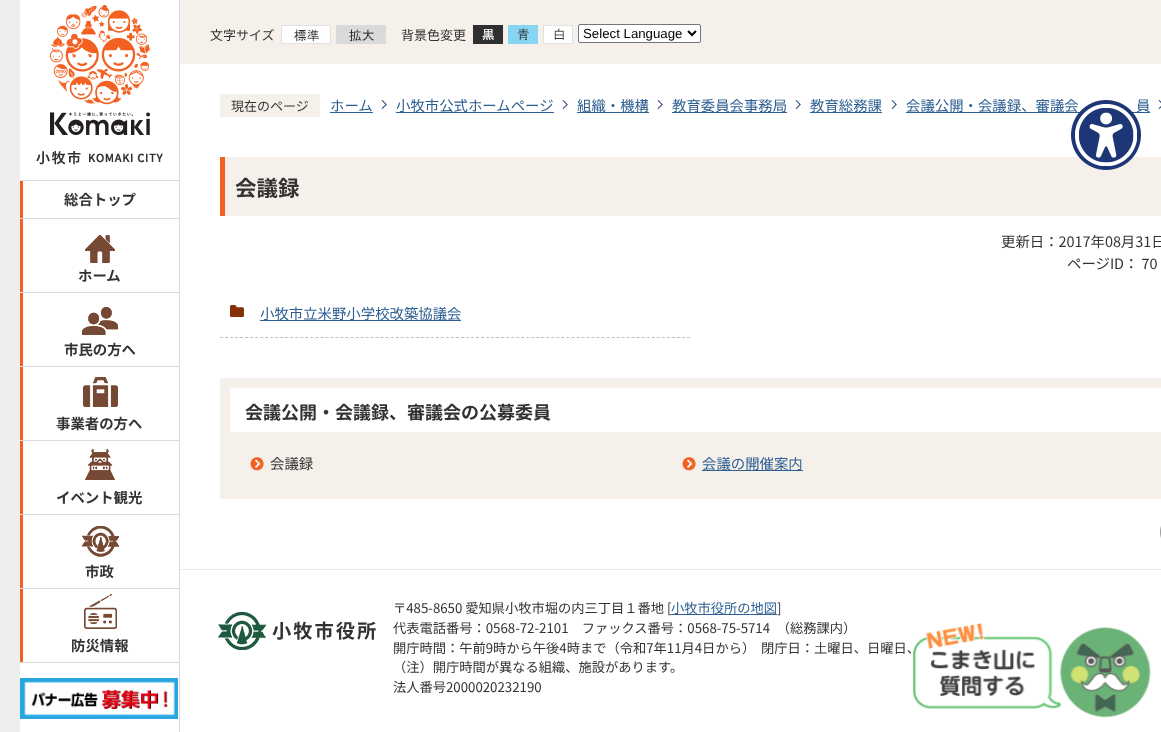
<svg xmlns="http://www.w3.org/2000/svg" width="1161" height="732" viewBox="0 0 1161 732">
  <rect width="100%" height="100%" fill="rgb(238,238,238)"/>
  <rect x="20" y="0" width="159" height="732" fill="rgb(255,255,255)"/>
  <rect x="179" y="0" width="1" height="732" fill="rgb(218,218,218)"/>
  <image x="36" y="5" width="127" height="160" href="pic1.png"/>
  <image x="20" y="180" width="159" height="38" href="pic2.png"/>
  <rect x="20" y="218" width="159" height="1" fill="rgb(218,218,218)"/>
  <text x="64" y="205" font-family="Noto Sans JP" font-size="14.4" font-weight="bold" fill="rgb(51,51,51)">総合トップ</text>
  <image x="20" y="219" width="95" height="73" href="pic3.png"/>
  <rect x="20" y="292" width="159" height="1" fill="rgb(218,218,218)"/>
  <text x="78" y="281" font-family="Noto Sans JP" font-size="14.4" font-weight="bold" fill="rgb(51,51,51)">ホーム</text>
  <image x="20" y="293" width="98" height="73" href="pic4.png"/>
  <rect x="20" y="366" width="159" height="1" fill="rgb(218,218,218)"/>
  <text x="64" y="355" font-family="Noto Sans JP" font-size="14.4" font-weight="bold" fill="rgb(51,51,51)">市民の方へ</text>
  <image x="20" y="367" width="98" height="73" href="pic5.png"/>
  <rect x="20" y="440" width="159" height="1" fill="rgb(218,218,218)"/>
  <text x="56" y="429" font-family="Noto Sans JP" font-size="14.4" font-weight="bold" fill="rgb(51,51,51)">事業者の方へ</text>
  <image x="20" y="441" width="95" height="73" href="pic6.png"/>
  <rect x="20" y="514" width="159" height="1" fill="rgb(218,218,218)"/>
  <text x="56" y="503" font-family="Noto Sans JP" font-size="14.4" font-weight="bold" fill="rgb(51,51,51)">イベント観光</text>
  <image x="20" y="515" width="99" height="73" href="pic7.png"/>
  <rect x="20" y="588" width="159" height="1" fill="rgb(218,218,218)"/>
  <text x="85" y="577" font-family="Noto Sans JP" font-size="14.4" font-weight="bold" fill="rgb(51,51,51)">市政</text>
  <image x="20" y="589" width="97" height="73" href="pic8.png"/>
  <rect x="20" y="662" width="159" height="1" fill="rgb(218,218,218)"/>
  <text x="71" y="651" font-family="Noto Sans JP" font-size="14.4" font-weight="bold" fill="rgb(51,51,51)">防災情報</text>
  <image x="20" y="678" width="158" height="41" href="pic9.png"/>
  <rect x="180" y="64" width="981" height="668" fill="rgb(255,255,255)"/>
  <rect x="180" y="0" width="981" height="64" fill="rgb(245,240,234)"/>
  <text x="210" y="40" font-family="Noto Sans JP" font-size="13" fill="rgb(51,51,51)">文字サイズ</text>
  <image x="281" y="25" width="50" height="19" href="pic10.png"/>
  <image x="336" y="25" width="50" height="19" href="pic11.png"/>
  <text x="401" y="40" font-family="Noto Sans JP" font-size="13" fill="rgb(51,51,51)">背景色変更</text>
  <image x="473" y="25" width="30" height="19" href="pic12.png"/>
  <image x="508" y="25" width="30" height="19" href="pic13.png"/>
  <image x="543" y="25" width="30" height="19" href="pic14.png"/>
  <rect x="578.5" y="24.5" width="122" height="18" rx="1.5" fill="rgb(255,255,255)" stroke="rgb(118,118,118)"/>
  <path d="M688 31L692 35L696 31" fill="none" stroke="rgb(0,0,0)" stroke-width="2"/>
  <text x="583" y="38" font-family="Liberation Sans" font-size="13.25" fill="rgb(0,0,0)">Select Language</text>
  <rect x="220" y="94" width="100" height="23" fill="rgb(245,240,234)"/>
  <text x="231" y="111" font-family="Noto Sans JP" font-size="13" fill="rgb(51,51,51)">現在のページ</text>
  <text x="330" y="111" font-family="Noto Sans JP" font-size="14.4" fill="rgb(45,95,146)">ホーム</text>
  <rect x="330" y="112" width="43" height="1" fill="rgb(45,95,146)"/>
  <image x="381" y="100" width="6" height="9" href="pic15.png"/>
  <rect x="396" y="112" width="158" height="1" fill="rgb(45,95,146)"/>
  <text x="396" y="111" font-family="Noto Sans JP" font-size="14.4" fill="rgb(45,95,146)">小牧市公式ホームページ</text>
  <image x="562" y="100" width="6" height="9" href="pic15.png"/>
  <rect x="577" y="112" width="72" height="1" fill="rgb(45,95,146)"/>
  <text x="577" y="111" font-family="Noto Sans JP" font-size="14.4" fill="rgb(45,95,146)">組織・機構</text>
  <image x="657" y="100" width="6" height="9" href="pic15.png"/>
  <rect x="672" y="112" width="115" height="1" fill="rgb(45,95,146)"/>
  <text x="672" y="111" font-family="Noto Sans JP" font-size="14.4" fill="rgb(45,95,146)">教育委員会事務局</text>
  <image x="795" y="100" width="6" height="9" href="pic15.png"/>
  <rect x="810" y="112" width="72" height="1" fill="rgb(45,95,146)"/>
  <text x="810" y="111" font-family="Noto Sans JP" font-size="14.4" fill="rgb(45,95,146)">教育総務課</text>
  <image x="891" y="100" width="6" height="9" href="pic15.png"/>
  <rect x="906" y="112" width="244" height="1" fill="rgb(45,95,146)"/>
  <g font-family="Noto Sans JP" font-size="14.4" fill="rgb(45,95,146)">
    <text x="906" y="111">会議公開・会議録、審議会</text>
    <text x="1136" y="111">員</text>
  </g>
  <image x="1158" y="100" width="3" height="9" href="pic16.png"/>
  <rect x="225" y="157" width="936" height="59" fill="rgb(245,240,234)"/>
  <rect x="220" y="157" width="5" height="59" fill="rgb(242,97,34)"/>
  <text x="235" y="196" font-family="Noto Sans JP" font-size="21.5" font-weight="bold" fill="rgb(51,51,51)">会議録</text>
  <g font-family="Noto Sans JP" font-size="14.4" fill="rgb(51,51,51)">
    <text x="1001" y="247">更新日：2017年08月31日</text>
    <text x="1067" y="269">ページID： 70</text>
  </g>
  <image x="230" y="305" width="14" height="12" href="pic17.png"/>
  <path d="M220 337.5H690" fill="none" stroke="rgb(191,191,191)" stroke-dasharray="3 2.02"/>
  <rect x="260" y="320" width="201" height="1" fill="rgb(45,95,146)"/>
  <text x="260" y="319" font-family="Noto Sans JP" font-size="14.4" fill="rgb(45,95,146)">小牧市立米野小学校改築協議会</text>
  <rect x="220" y="378" width="941" height="121" fill="rgb(245,240,234)"/>
  <rect x="230" y="388" width="931" height="44" fill="rgb(255,255,255)"/>
  <text x="245" y="419" font-family="Noto Sans JP" font-size="18" font-weight="bold" fill="rgb(51,51,51)">会議公開・会議録、審議会の公募委員</text>
  <image x="250" y="457" width="14" height="14" href="pic18.png"/>
  <text x="270" y="469" font-family="Noto Sans JP" font-size="14.4" fill="rgb(51,51,51)">会議録</text>
  <image x="682" y="457" width="14" height="14" href="pic18.png"/>
  <rect x="702" y="470" width="101" height="1" fill="rgb(45,95,146)"/>
  <text x="702" y="469" font-family="Noto Sans JP" font-size="14.4" fill="rgb(45,95,146)">会議の開催案内</text>
  <image x="1160" y="526" width="1" height="12" href="pic19.png"/>
  <rect x="180" y="569" width="981" height="1" fill="rgb(236,235,233)"/>
  <image x="218" y="612" width="48" height="38" href="pic20.png"/>
  <text x="272" y="638" font-family="Noto Sans JP" font-size="19.25" font-weight="bold" letter-spacing="2" fill="rgb(51,51,51)">小牧市役所</text>
  <text x="393" y="613" font-family="Noto Sans JP" font-size="13.25" fill="rgb(51,51,51)">〒485-8650 愛知県小牧市堀の内三丁目１番地 [</text>
  <rect x="671" y="614" width="106" height="1" fill="rgb(45,95,146)"/>
  <text x="671" y="613" font-family="Noto Sans JP" font-size="13.25" fill="rgb(45,95,146)">小牧市役所の地図</text>
  <g font-family="Noto Sans JP" font-size="13.25" fill="rgb(51,51,51)">
    <text x="777" y="613">]</text>
    <text>
      <tspan x="393" y="633">代表電話番号：0568-72-2101　ファックス番号：0568-75-5714　（総務課内）</tspan>
      <tspan x="393" y="653">開庁時間：午前9時から午後4時まで（令和7年11月4日から）</tspan>
    </text>
    <text x="761" y="653">閉庁日：土曜日、日曜日、</text>
    <text>
      <tspan x="393" y="672">（注）開庁時間が異なる組織、施設があります。</tspan>
      <tspan x="393" y="692">法人番号2000020232190</tspan>
    </text>
  </g>
  <image x="913" y="623" width="238" height="95" href="pic21.png"/>
  <image x="1071" y="100" width="70" height="70" href="pic22.png"/>
</svg>
